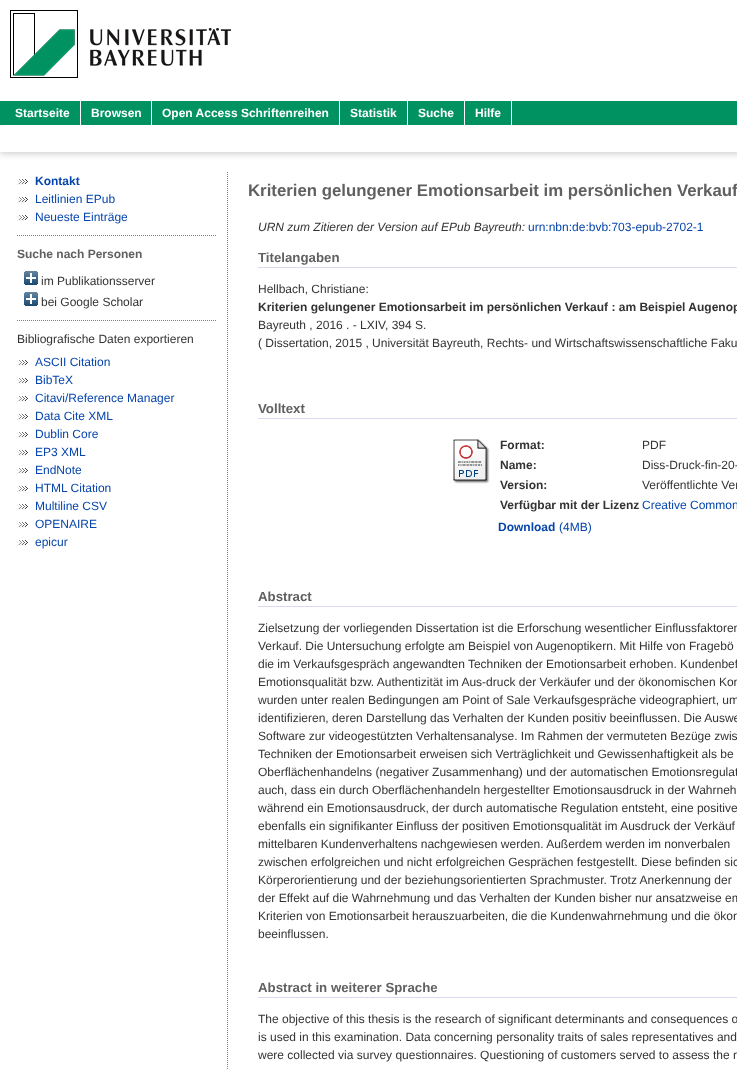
<svg xmlns="http://www.w3.org/2000/svg" width="737" height="1070" viewBox="0 0 737 1070">
  <defs>
    <clipPath id="clip1"><path d="M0 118H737V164H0ZM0 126H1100V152H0Z" clip-rule="evenodd"/></clipPath>
  </defs>
  <rect width="100%" height="100%" fill="rgb(255,255,255)"/>
  <image x="10" y="10" width="221" height="68" href="pic1.png"/>
  <rect x="0" y="101" width="737" height="24" fill="rgb(0,146,96)"/>
  <g clip-path="url(#clip1)">
    <rect x="0" y="128" width="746" height="26" fill="rgba(100,100,100,0.3)" filter="blur(3px)"/>
  </g>
  <rect x="5" y="124" width="506" height="1" fill="rgb(0,146,96)"/>
  <rect x="5" y="125" width="507" height="1" fill="rgb(255,255,255)"/>
  <rect x="80" y="101" width="1" height="24" fill="rgb(255,255,255)"/>
  <text x="15" y="117" font-family="Liberation Sans" font-size="12" font-weight="bold" fill="rgb(255,255,255)">Startseite</text>
  <rect x="151" y="101" width="1" height="24" fill="rgb(255,255,255)"/>
  <text x="91" y="117" font-family="Liberation Sans" font-size="12" font-weight="bold" fill="rgb(255,255,255)">Browsen</text>
  <rect x="339" y="101" width="1" height="24" fill="rgb(255,255,255)"/>
  <text x="162" y="117" font-family="Liberation Sans" font-size="12" font-weight="bold" fill="rgb(255,255,255)">Open Access Schriftenreihen</text>
  <rect x="407" y="101" width="1" height="24" fill="rgb(255,255,255)"/>
  <text x="350" y="117" font-family="Liberation Sans" font-size="12" font-weight="bold" fill="rgb(255,255,255)">Statistik</text>
  <rect x="464" y="101" width="1" height="24" fill="rgb(255,255,255)"/>
  <text x="418" y="117" font-family="Liberation Sans" font-size="12" font-weight="bold" fill="rgb(255,255,255)">Suche</text>
  <rect x="511" y="101" width="1" height="24" fill="rgb(255,255,255)"/>
  <text x="475" y="117" font-family="Liberation Sans" font-size="12" font-weight="bold" fill="rgb(255,255,255)">Hilfe</text>
  <image x="17" y="179" width="11" height="6" href="pic2.png"/>
  <text x="35" y="185" font-family="Liberation Sans" font-size="12" font-weight="bold" fill="rgb(6,69,173)">Kontakt</text>
  <image x="17" y="197" width="11" height="6" href="pic2.png"/>
  <text x="35" y="203" font-family="Liberation Sans" font-size="12" fill="rgb(6,69,173)">Leitlinien EPub</text>
  <image x="17" y="215" width="11" height="6" href="pic2.png"/>
  <text x="35" y="221" font-family="Liberation Sans" font-size="12" fill="rgb(6,69,173)">Neueste Einträge</text>
  <path d="M17 235.5H217" fill="none" stroke="rgb(128,128,128)" stroke-dasharray="1 1"/>
  <text x="17" y="258" font-family="Liberation Sans" font-size="12" font-weight="bold" fill="rgb(96,96,96)">Suche nach Personen</text>
  <image x="24" y="271" width="14" height="14" href="pic3.png"/>
  <text x="41" y="285" font-family="Liberation Sans" font-size="12" fill="rgb(51,51,51)">im Publikationsserver</text>
  <image x="24" y="292" width="14" height="14" href="pic3.png"/>
  <text x="41" y="306" font-family="Liberation Sans" font-size="12" fill="rgb(51,51,51)">bei Google Scholar</text>
  <path d="M17 320.5H217" fill="none" stroke="rgb(128,128,128)" stroke-dasharray="1 1"/>
  <text x="17" y="343" font-family="Liberation Sans" font-size="12" fill="rgb(51,51,51)">Bibliografische Daten exportieren</text>
  <image x="17" y="360" width="11" height="6" href="pic2.png"/>
  <text x="35" y="366" font-family="Liberation Sans" font-size="12" fill="rgb(6,69,173)">ASCII Citation</text>
  <image x="17" y="378" width="11" height="6" href="pic2.png"/>
  <text x="35" y="384" font-family="Liberation Sans" font-size="12" fill="rgb(6,69,173)">BibTeX</text>
  <image x="17" y="396" width="11" height="6" href="pic2.png"/>
  <text x="35" y="402" font-family="Liberation Sans" font-size="12" fill="rgb(6,69,173)">Citavi/Reference Manager</text>
  <image x="17" y="414" width="11" height="6" href="pic2.png"/>
  <text x="35" y="420" font-family="Liberation Sans" font-size="12" fill="rgb(6,69,173)">Data Cite XML</text>
  <image x="17" y="432" width="11" height="6" href="pic2.png"/>
  <text x="35" y="438" font-family="Liberation Sans" font-size="12" fill="rgb(6,69,173)">Dublin Core</text>
  <image x="17" y="450" width="11" height="6" href="pic2.png"/>
  <text x="35" y="456" font-family="Liberation Sans" font-size="12" fill="rgb(6,69,173)">EP3 XML</text>
  <image x="17" y="468" width="11" height="6" href="pic2.png"/>
  <text x="35" y="474" font-family="Liberation Sans" font-size="12" fill="rgb(6,69,173)">EndNote</text>
  <image x="17" y="486" width="11" height="6" href="pic2.png"/>
  <text x="35" y="492" font-family="Liberation Sans" font-size="12" fill="rgb(6,69,173)">HTML Citation</text>
  <image x="17" y="504" width="11" height="6" href="pic2.png"/>
  <text x="35" y="510" font-family="Liberation Sans" font-size="12" fill="rgb(6,69,173)">Multiline CSV</text>
  <image x="17" y="522" width="11" height="6" href="pic2.png"/>
  <text x="35" y="528" font-family="Liberation Sans" font-size="12" fill="rgb(6,69,173)">OPENAIRE</text>
  <image x="17" y="540" width="11" height="6" href="pic2.png"/>
  <text x="35" y="546" font-family="Liberation Sans" font-size="12" fill="rgb(6,69,173)">epicur</text>
  <path d="M227.5 172V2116" fill="none" stroke="rgb(128,128,128)" stroke-dasharray="1 1"/>
  <text x="248" y="196" font-family="Liberation Sans" font-size="16.8" font-weight="bold" fill="rgb(96,96,96)">Kriterien gelungener Emotionsarbeit im persönlichen Verkauf</text>
  <text x="258" y="231" font-family="Liberation Sans" font-size="12" font-style="italic" fill="rgb(51,51,51)">URN zum Zitieren der Version auf EPub Bayreuth:</text>
  <text x="528" y="231" font-family="Liberation Sans" font-size="12" fill="rgb(6,69,173)">urn:nbn:de:bvb:703-epub-2702-1</text>
  <rect x="258" y="267" width="479" height="1" fill="rgb(216,219,239)"/>
  <text x="258" y="262" font-family="Liberation Sans" font-size="13.25" font-weight="bold" fill="rgb(96,96,96)">Titelangaben</text>
  <text x="258" y="293" font-family="Liberation Sans" font-size="12" fill="rgb(51,51,51)">Hellbach, Christiane:</text>
  <text x="258" y="311" font-family="Liberation Sans" font-size="12" font-weight="bold" fill="rgb(51,51,51)">Kriterien gelungener Emotionsarbeit im persönlichen Verkauf : am Beispiel Augenop</text>
  <g font-family="Liberation Sans" font-size="12" fill="rgb(51,51,51)">
    <text>
      <tspan x="258" y="329">Bayreuth , 2016 . - LXIV, 394 S.</tspan>
      <tspan x="258" y="347">( Dissertation, 2015 , Universität Bayreuth, Rechts- und Wirtschaftswissenschaftliche Faku</tspan>
    </text>
  </g>
  <rect x="258" y="418" width="479" height="1" fill="rgb(216,219,239)"/>
  <text x="258" y="413" font-family="Liberation Sans" font-size="13.25" font-weight="bold" fill="rgb(96,96,96)">Volltext</text>
  <image x="453" y="439" width="37" height="45" href="pic4.png"/>
  <text x="500" y="449" font-family="Liberation Sans" font-size="12" font-weight="bold" fill="rgb(51,51,51)">Format:</text>
  <text x="642" y="449" font-family="Liberation Sans" font-size="12" fill="rgb(51,51,51)">PDF</text>
  <text x="500" y="469" font-family="Liberation Sans" font-size="12" font-weight="bold" fill="rgb(51,51,51)">Name:</text>
  <text x="642" y="469" font-family="Liberation Sans" font-size="12" fill="rgb(51,51,51)">Diss-Druck-fin-20-</text>
  <text x="500" y="489" font-family="Liberation Sans" font-size="12" font-weight="bold" fill="rgb(51,51,51)">Version:</text>
  <text x="642" y="489" font-family="Liberation Sans" font-size="12" fill="rgb(51,51,51)">Veröffentlichte Ver</text>
  <text x="500" y="509" font-family="Liberation Sans" font-size="12" font-weight="bold" fill="rgb(51,51,51)">Verfügbar mit der Lizenz</text>
  <text x="642" y="509" font-family="Liberation Sans" font-size="12" fill="rgb(6,69,173)">Creative Common</text>
  <text x="498" y="531" font-family="Liberation Sans" font-size="12" font-weight="bold" fill="rgb(6,69,173)">Download</text>
  <text x="559" y="531" font-family="Liberation Sans" font-size="12" fill="rgb(6,69,173)">(4MB)</text>
  <rect x="258" y="606" width="479" height="1" fill="rgb(216,219,239)"/>
  <text x="258" y="601" font-family="Liberation Sans" font-size="13.25" font-weight="bold" fill="rgb(96,96,96)">Abstract</text>
  <g font-family="Liberation Sans" font-size="12" fill="rgb(51,51,51)">
    <text>
      <tspan x="258" y="632">Zielsetzung der vorliegenden Dissertation ist die Erforschung wesentlicher Einflussfaktoren</tspan>
      <tspan x="258" y="650">Verkauf. Die Untersuchung erfolgte am Beispiel von Augenoptikern. Mit Hilfe von Fragebö</tspan>
      <tspan x="258" y="668">die im Verkaufsgespräch angewandten Techniken der Emotionsarbeit erhoben. Kundenbef</tspan>
      <tspan x="258" y="686">Emotionsqualität bzw. Authentizität im Aus-druck der Verkäufer und der ökonomischen Kon</tspan>
      <tspan x="258" y="704">wurden unter realen Bedingungen am Point of Sale Verkaufsgespräche videographiert, um</tspan>
      <tspan x="258" y="722">identifizieren, deren Darstellung das Verhalten der Kunden positiv beeinflussen. Die Auswe</tspan>
      <tspan x="258" y="740">Software zur videogestützten Verhaltensanalyse. Im Rahmen der vermuteten Bezüge zwis</tspan>
      <tspan x="258" y="758">Techniken der Emotionsarbeit erweisen sich Verträglichkeit und Gewissenhaftigkeit als be</tspan>
      <tspan x="258" y="776">Oberflächenhandelns (negativer Zusammenhang) und der automatischen Emotionsregulat</tspan>
      <tspan x="258" y="794">auch, dass ein durch Oberflächenhandeln hergestellter Emotionsausdruck in der Wahrneh</tspan>
      <tspan x="258" y="812">während ein Emotionsausdruck, der durch automatische Regulation entsteht, eine positive</tspan>
      <tspan x="258" y="830">ebenfalls ein signifikanter Einfluss der positiven Emotionsqualität im Ausdruck der Verkäuf</tspan>
      <tspan x="258" y="848">mittelbaren Kundenverhaltens nachgewiesen werden. Außerdem werden im nonverbalen</tspan>
      <tspan x="258" y="866">zwischen erfolgreichen und nicht erfolgreichen Gesprächen festgestellt. Diese befinden sic</tspan>
      <tspan x="258" y="884">Körperorientierung und der beziehungsorientierten Sprachmuster. Trotz Anerkennung der</tspan>
      <tspan x="258" y="902">der Effekt auf die Wahrnehmung und das Verhalten der Kunden bisher nur ansatzweise em</tspan>
      <tspan x="258" y="920">Kriterien von Emotionsarbeit herauszuarbeiten, die die Kundenwahrnehmung und die ökon</tspan>
      <tspan x="258" y="938">beeinflussen.</tspan>
    </text>
  </g>
  <rect x="258" y="997" width="479" height="1" fill="rgb(216,219,239)"/>
  <text x="258" y="992" font-family="Liberation Sans" font-size="13.25" font-weight="bold" fill="rgb(96,96,96)">Abstract in weiterer Sprache</text>
  <g font-family="Liberation Sans" font-size="12" fill="rgb(51,51,51)">
    <text>
      <tspan x="258" y="1023">The objective of this thesis is the research of significant determinants and consequences o</tspan>
      <tspan x="258" y="1041">is used in this examination. Data concerning personality traits of sales representatives and</tspan>
      <tspan x="258" y="1059">were collected via survey questionnaires. Questioning of customers served to assess the r</tspan>
    </text>
  </g>
</svg>
